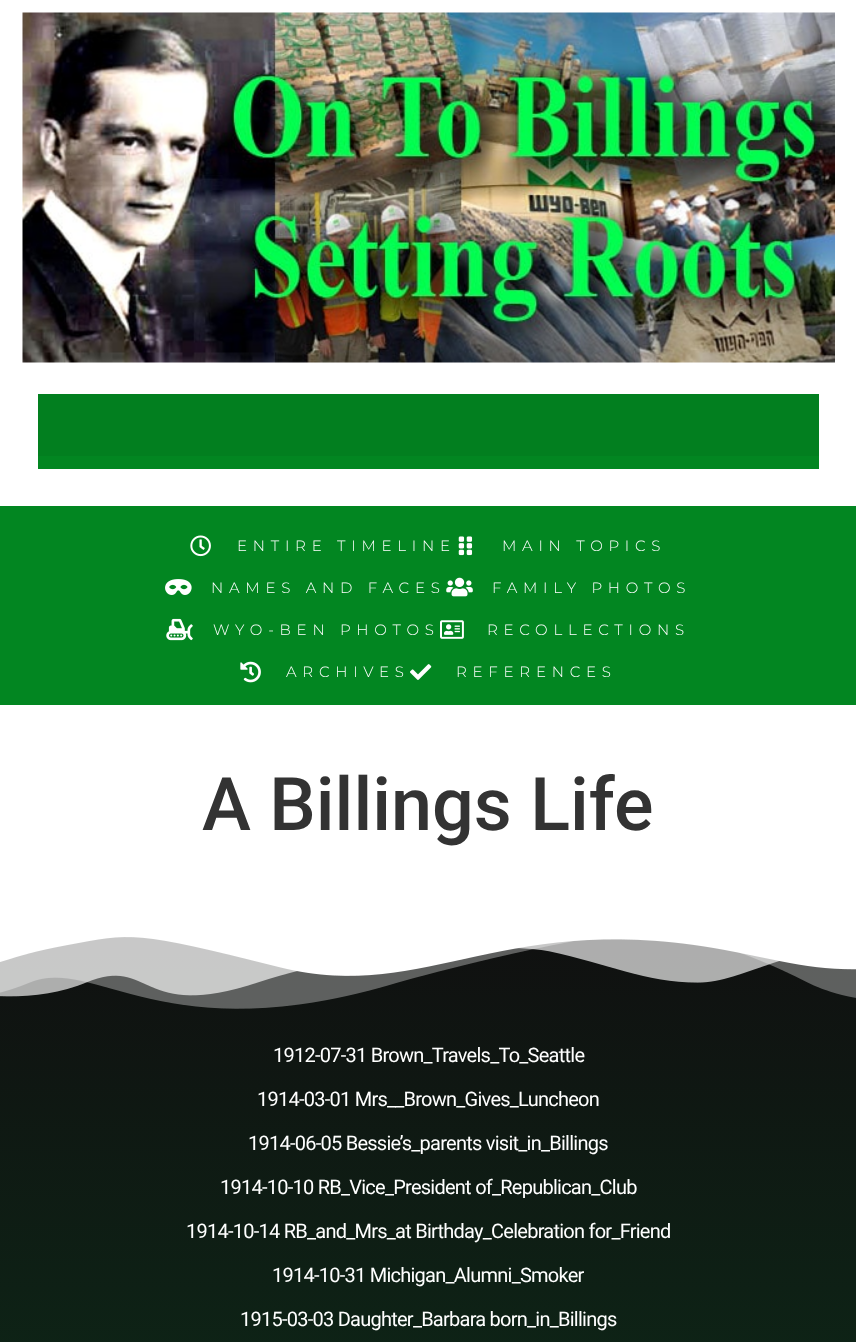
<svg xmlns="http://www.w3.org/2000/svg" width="856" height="1342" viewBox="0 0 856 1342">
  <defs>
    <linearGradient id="g1" gradientUnits="userSpaceOnUse" x1="428" y1="930" x2="428" y2="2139"><stop offset="0" stop-color="rgb(16,16,16)"/><stop offset="1" stop-color="rgb(9,70,33)"/></linearGradient>
  </defs>
  <rect width="100%" height="100%" fill="rgb(255,255,255)"/>
  <image x="22" y="12" width="813" height="351" href="pic1.png"/>
  <rect x="38" y="456" width="781" height="13" fill="rgb(2,134,33)"/>
  <rect x="38" y="394" width="781" height="62" fill="rgb(2,127,31)"/>
  <rect x="0" y="506" width="856" height="199" fill="rgb(2,134,33)"/>
  <image x="190" y="535" width="21" height="22" href="pic2.png"/>
  <text x="237" y="551" font-family="Montserrat" font-size="15" font-weight="300" letter-spacing="5.75" fill="rgb(255,255,255)">ENTIRE TIMELINE</text>
  <image x="458" y="536" width="15" height="20" href="pic3.png"/>
  <text x="502" y="551" font-family="Montserrat" font-size="15" font-weight="300" letter-spacing="5.75" fill="rgb(255,255,255)">MAIN TOPICS</text>
  <image x="165" y="579" width="27" height="16" href="pic4.png"/>
  <text x="211" y="593" font-family="Montserrat" font-size="15" font-weight="300" letter-spacing="5.75" fill="rgb(255,255,255)">NAMES AND FACES</text>
  <image x="446" y="577" width="27" height="20" href="pic5.png"/>
  <text x="492" y="593" font-family="Montserrat" font-size="15" font-weight="300" letter-spacing="5.75" fill="rgb(255,255,255)">FAMILY PHOTOS</text>
  <image x="166" y="618" width="27" height="23" href="pic6.png"/>
  <text x="213" y="635" font-family="Montserrat" font-size="15" font-weight="300" letter-spacing="5.75" fill="rgb(255,255,255)">WYO-BEN PHOTOS</text>
  <image x="440" y="620" width="24" height="19" href="pic7.png"/>
  <text x="487" y="635" font-family="Montserrat" font-size="15" font-weight="300" letter-spacing="5.75" fill="rgb(255,255,255)">RECOLLECTIONS</text>
  <image x="240" y="661" width="21" height="22" href="pic8.png"/>
  <text x="286" y="677" font-family="Montserrat" font-size="15" font-weight="300" letter-spacing="5.75" fill="rgb(255,255,255)">ARCHIVES</text>
  <image x="410" y="664" width="22" height="16" href="pic9.png"/>
  <text x="456" y="677" font-family="Montserrat" font-size="15" font-weight="300" letter-spacing="5.75" fill="rgb(255,255,255)">REFERENCES</text>
  <text x="202" y="830" font-family="Roboto" font-size="73.75" font-weight="500" fill="rgb(51,51,51)">A Billings Life</text>
  <rect x="0" y="937" width="856" height="405" fill="url(#g1)"/>
  <image x="0" y="930" width="856" height="79" href="pic10.png"/>
  <g font-family="Roboto" font-size="20" letter-spacing="-0.75" fill="rgb(255,255,255)">
    <text x="273" y="1062">1912-07-31 Brown_Travels_To_Seattle</text>
    <text x="257" y="1106">1914-03-01 Mrs__Brown_Gives_Luncheon</text>
    <text x="248" y="1150">1914-06-05 Bessie’s_parents visit_in_Billings</text>
    <text x="220" y="1194">1914-10-10 RB_Vice_President of_Republican_Club</text>
    <text x="186" y="1238">1914-10-14 RB_and_Mrs_at Birthday_Celebration for_Friend</text>
    <text x="272" y="1282">1914-10-31 Michigan_Alumni_Smoker</text>
    <text x="240" y="1326">1915-03-03 Daughter_Barbara born_in_Billings</text>
  </g>
</svg>
